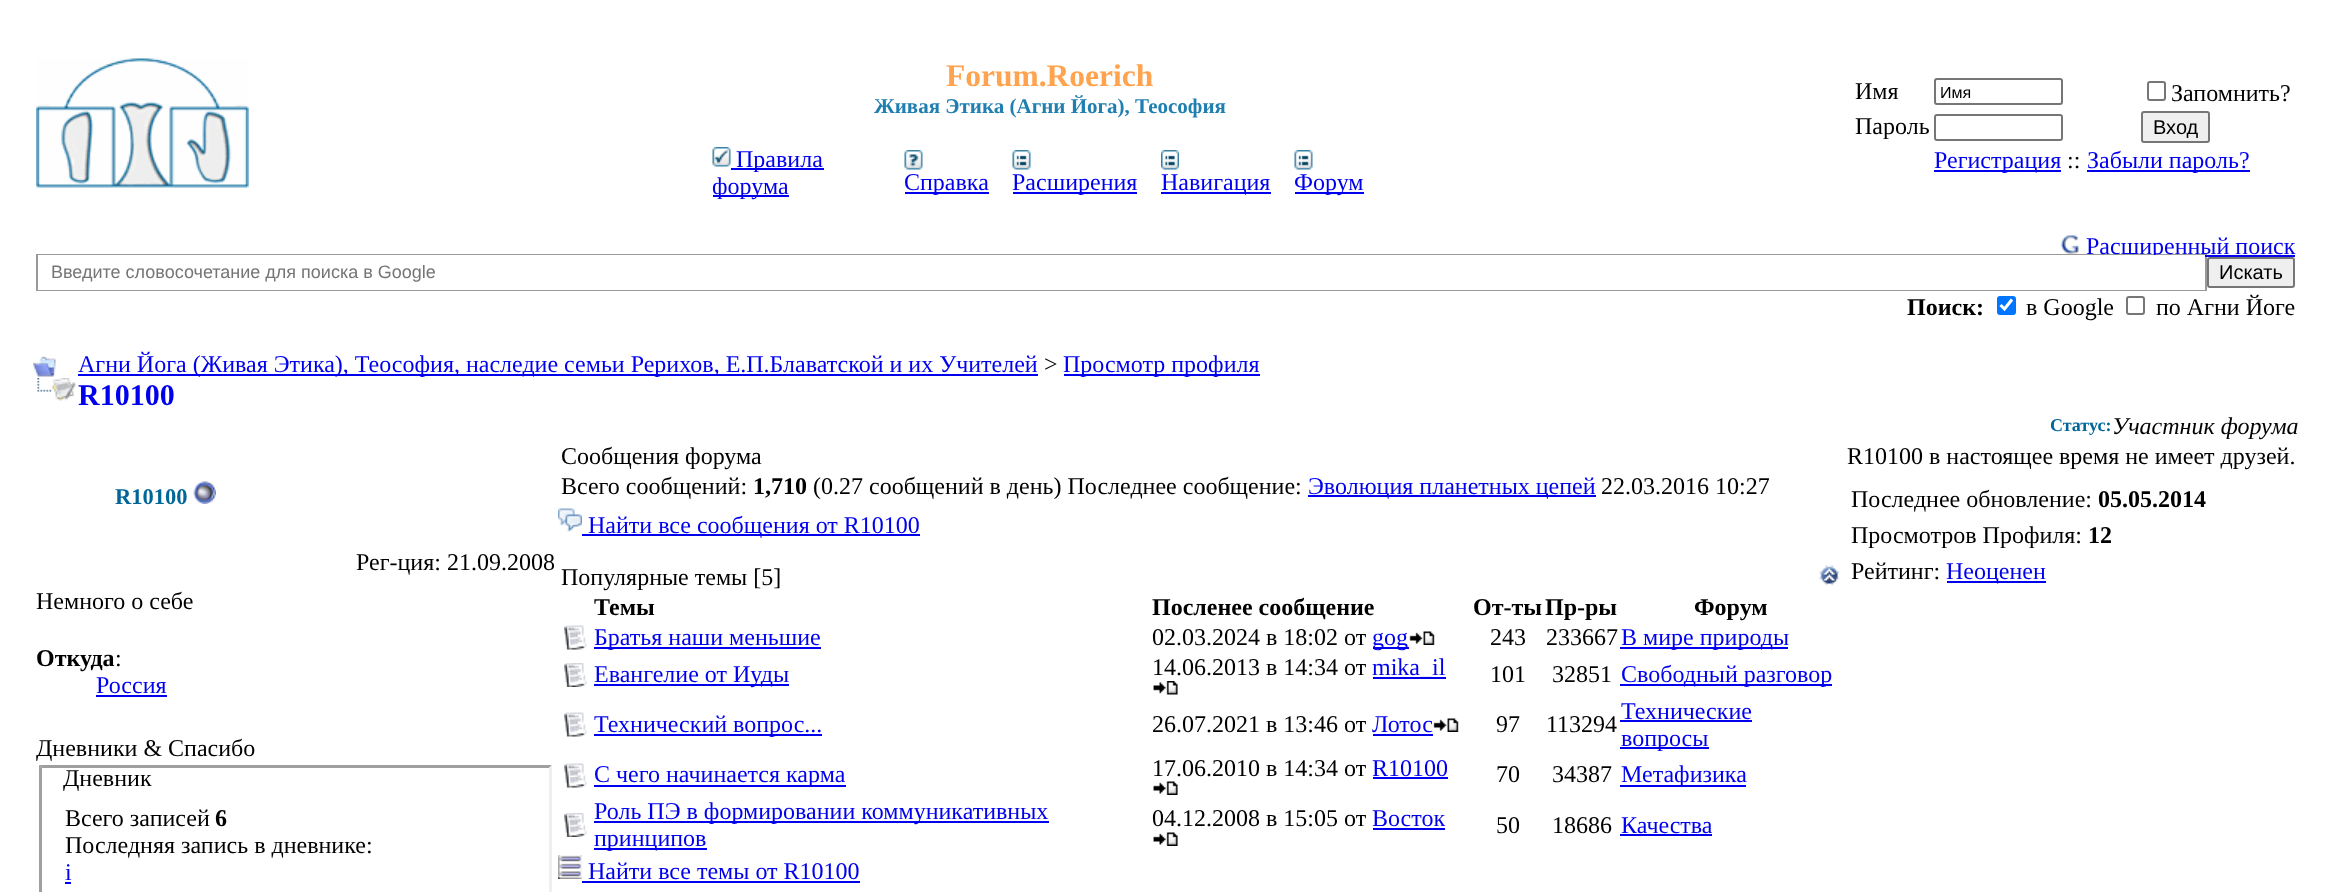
<svg xmlns="http://www.w3.org/2000/svg" width="2330" height="892" viewBox="0 0 2330 892">
  <rect width="100%" height="100%" fill="rgb(255,255,255)"/>
  <image x="36" y="58" width="213" height="130" href="pic1.png"/>
  <text x="946" y="86" font-family="Liberation Serif" font-size="31.5" font-weight="bold" fill="rgb(255,163,79)">Forum.Roerich</text>
  <text x="874" y="113" font-family="Liberation Serif" font-size="21" font-weight="bold" fill="rgb(31,127,176)">Живая Этика (Агни Йога), Теософия</text>
  <image x="712" y="147" width="19" height="20" href="pic2.png"/>
  <rect x="731" y="168" width="93" height="2" fill="rgb(0,0,238)"/>
  <text x="736" y="167" font-family="Liberation Serif" font-size="24" fill="rgb(0,0,238)">Правила</text>
  <rect x="713" y="195" width="76" height="2" fill="rgb(0,0,238)"/>
  <text x="712" y="194" font-family="Liberation Serif" font-size="24" fill="rgb(0,0,238)">форума</text>
  <image x="904" y="150" width="19" height="20" href="pic3.png"/>
  <rect x="905" y="192" width="84" height="2" fill="rgb(0,0,238)"/>
  <text x="904" y="190" font-family="Liberation Serif" font-size="24" fill="rgb(0,0,238)">Справка</text>
  <image x="1012" y="150" width="19" height="20" href="pic4.png"/>
  <rect x="1013" y="192" width="124" height="2" fill="rgb(0,0,238)"/>
  <text x="1012" y="190" font-family="Liberation Serif" font-size="24" fill="rgb(0,0,238)">Расширения</text>
  <image x="1161" y="150" width="18" height="20" href="pic5.png"/>
  <rect x="1161" y="192" width="110" height="2" fill="rgb(0,0,238)"/>
  <text x="1161" y="190" font-family="Liberation Serif" font-size="24" fill="rgb(0,0,238)">Навигация</text>
  <image x="1294" y="150" width="19" height="20" href="pic6.png"/>
  <rect x="1295" y="192" width="69" height="2" fill="rgb(0,0,238)"/>
  <text x="1294" y="190" font-family="Liberation Serif" font-size="24" fill="rgb(0,0,238)">Форум</text>
  <text x="1855" y="99" font-family="Liberation Serif" font-size="24" fill="rgb(0,0,0)">Имя</text>
  <rect x="1935" y="79" width="127" height="25" rx="2" fill="none" stroke="rgb(118,118,118)" stroke-width="2"/>
  <text x="1940" y="98" font-family="Liberation Sans" font-size="16" fill="rgb(0,0,0)">Имя</text>
  <rect x="2148" y="82" width="17" height="18" rx="2" fill="none" stroke="rgb(118,118,118)" stroke-width="2"/>
  <g font-family="Liberation Serif" font-size="24" fill="rgb(0,0,0)">
    <text x="2171" y="101">Запомнить?</text>
    <text x="1855" y="134">Пароль</text>
  </g>
  <rect x="1935" y="115" width="127" height="25" rx="2" fill="none" stroke="rgb(118,118,118)" stroke-width="2"/>
  <rect x="2142" y="112" width="67" height="30" rx="2" fill="rgb(239,239,239)" stroke="rgb(118,118,118)" stroke-width="2"/>
  <text x="2153" y="134" font-family="Liberation Sans" font-size="20" fill="rgb(0,0,0)">Вход</text>
  <rect x="1934" y="170" width="127" height="2" fill="rgb(0,0,238)"/>
  <text x="1934" y="168" font-family="Liberation Serif" font-size="24" fill="rgb(0,0,238)">Регистрация</text>
  <text x="2067" y="168" font-family="Liberation Serif" font-size="24" fill="rgb(0,0,0)">::</text>
  <rect x="2087" y="170" width="163" height="2" fill="rgb(0,0,238)"/>
  <text x="2087" y="168" font-family="Liberation Serif" font-size="24" fill="rgb(0,0,238)">Забыли пароль?</text>
  <image x="2060" y="235" width="19" height="19" href="pic7.png"/>
  <rect x="37" y="255" width="2169" height="35" fill="none" stroke="rgb(153,153,153)" stroke-width="2"/>
  <rect x="2205" y="255" width="90" height="2" fill="rgb(0,0,238)"/>
  <text x="2086" y="254" font-family="Liberation Serif" font-size="24" fill="rgb(0,0,238)">Расширенный поиск</text>
  <rect x="38" y="255" width="2167" height="35" fill="rgb(255,255,255)"/>
  <text x="51" y="278" font-family="Liberation Sans" font-size="18" fill="rgb(117,117,117)">Введите словосочетание для поиска в Google</text>
  <rect x="2208" y="258" width="86" height="29" rx="2" fill="rgb(239,239,239)" stroke="rgb(118,118,118)" stroke-width="2"/>
  <text x="2219" y="279" font-family="Liberation Sans" font-size="20" fill="rgb(0,0,0)">Искать</text>
  <text x="1907" y="315" font-family="Liberation Serif" font-size="24" font-weight="bold" fill="rgb(0,0,0)">Поиск:</text>
  <rect x="1997" y="296" width="19" height="19" rx="3" fill="rgb(0,117,255)"/>
  <path d="M2000.5 305L2004.5 309L2012 299.5" fill="none" stroke="rgb(255,255,255)" stroke-width="3.1"/>
  <text x="2026" y="315" font-family="Liberation Serif" font-size="24" fill="rgb(0,0,0)">в Google</text>
  <rect x="2127" y="297" width="17" height="17" rx="2" fill="none" stroke="rgb(118,118,118)" stroke-width="2"/>
  <text x="2156" y="315" font-family="Liberation Serif" font-size="24" fill="rgb(0,0,0)">по Агни Йоге</text>
  <image x="33" y="356" width="23" height="21" href="pic8.png"/>
  <rect x="78" y="374" width="960" height="2" fill="rgb(0,0,238)"/>
  <text x="78" y="372" font-family="Liberation Serif" font-size="24" fill="rgb(0,0,238)">Агни Йога (Живая Этика), Теософия, наследие семьи Рерихов, Е.П.Блаватской и их Учителей</text>
  <text x="1044" y="372" font-family="Liberation Serif" font-size="24" fill="rgb(0,0,0)">&gt;</text>
  <rect x="1064" y="374" width="196" height="2" fill="rgb(0,0,238)"/>
  <text x="1063" y="372" font-family="Liberation Serif" font-size="24" fill="rgb(0,0,238)">Просмотр профиля</text>
  <image x="37" y="378" width="39" height="23" href="pic9.png"/>
  <text x="78" y="405" font-family="Liberation Serif" font-size="30" font-weight="bold" fill="rgb(0,0,238)">R10100</text>
  <text x="2050" y="431" font-family="Liberation Serif" font-size="18" font-weight="bold" fill="rgb(0,102,153)">Статус:</text>
  <text x="2112" y="434" font-family="Liberation Serif" font-size="24" font-style="italic" fill="rgb(0,0,0)">Участник форума</text>
  <text x="115" y="504" font-family="Liberation Serif" font-size="22.5" font-weight="bold" fill="rgb(0,102,153)">R10100</text>
  <image x="193" y="481" width="23" height="23" href="pic10.png"/>
  <g font-family="Liberation Serif" font-size="24" fill="rgb(0,0,0)">
    <text x="356" y="570">Рег-ция: 21.09.2008</text>
    <text x="36" y="609">Немного о себе</text>
  </g>
  <text x="36" y="666" font-family="Liberation Serif" font-size="24" font-weight="bold" fill="rgb(0,0,0)">Откуда</text>
  <text x="115" y="666" font-family="Liberation Serif" font-size="24" fill="rgb(0,0,0)">:</text>
  <text x="96" y="693" font-family="Liberation Serif" font-size="24" fill="rgb(0,0,238)">Россия</text>
  <rect x="96" y="695" width="71" height="2" fill="rgb(0,0,238)"/>
  <text x="36" y="756" font-family="Liberation Serif" font-size="24" fill="rgb(0,0,0)">Дневники &amp; Спасибо</text>
  <path d="M39 765H552L549 768H42Z" fill="rgb(159,159,159)"/>
  <path d="M552 765V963L549 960V768Z" fill="rgb(239,239,239)"/>
  <path d="M39 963V765L42 768V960Z" fill="rgb(159,159,159)"/>
  <g font-family="Liberation Serif" font-size="24" fill="rgb(0,0,0)">
    <text x="63" y="786">Дневник</text>
    <text x="65" y="826">Всего записей</text>
  </g>
  <text x="215" y="826" font-family="Liberation Serif" font-size="24" font-weight="bold" fill="rgb(0,0,0)">6</text>
  <text x="65" y="853" font-family="Liberation Serif" font-size="24" fill="rgb(0,0,0)">Последняя запись в дневнике:</text>
  <text x="65" y="880" font-family="Liberation Serif" font-size="24" fill="rgb(0,0,238)">i</text>
  <rect x="65" y="882" width="6" height="2" fill="rgb(0,0,238)"/>
  <g font-family="Liberation Serif" font-size="24" fill="rgb(0,0,0)">
    <text>
      <tspan x="561" y="464">Сообщения форума</tspan>
      <tspan x="561" y="494">Всего сообщений:</tspan>
    </text>
  </g>
  <text x="753" y="494" font-family="Liberation Serif" font-size="24" font-weight="bold" fill="rgb(0,0,0)">1,710</text>
  <text x="813" y="494" font-family="Liberation Serif" font-size="24" fill="rgb(0,0,0)">(0.27 сообщений в день) Последнее сообщение:</text>
  <rect x="1308" y="495" width="288" height="2" fill="rgb(0,0,238)"/>
  <text x="1308" y="494" font-family="Liberation Serif" font-size="24" fill="rgb(0,0,238)">Эволюция планетных цепей</text>
  <text x="1601" y="494" font-family="Liberation Serif" font-size="24" fill="rgb(0,0,0)">22.03.2016 10:27</text>
  <image x="558" y="508" width="24" height="24" href="pic11.png"/>
  <rect x="582" y="534" width="338" height="2" fill="rgb(0,0,238)"/>
  <text x="588" y="533" font-family="Liberation Serif" font-size="24" fill="rgb(0,0,238)">Найти все сообщения от R10100</text>
  <text x="561" y="585" font-family="Liberation Serif" font-size="24" fill="rgb(0,0,0)">Популярные темы [5]</text>
  <image x="1819" y="565" width="21" height="21" href="pic12.png"/>
  <g font-family="Liberation Serif" font-size="24" font-weight="bold" fill="rgb(0,0,0)">
    <text x="594" y="615">Темы</text>
    <text x="1152" y="615">Посленее сообщение</text>
    <text x="1473" y="615">От-ты</text>
    <text x="1545" y="615">Пр-ры</text>
    <text x="1694" y="615">Форум</text>
  </g>
  <image x="564" y="625" width="23" height="25" href="pic13.png"/>
  <rect x="594" y="647" width="227" height="2" fill="rgb(0,0,238)"/>
  <text x="594" y="645" font-family="Liberation Serif" font-size="24" fill="rgb(0,0,238)">Братья наши меньшие</text>
  <text x="1152" y="645" font-family="Liberation Serif" font-size="24" fill="rgb(0,0,0)">02.03.2024 в 18:02 от</text>
  <rect x="1373" y="647" width="36" height="2" fill="rgb(0,0,238)"/>
  <text x="1372" y="645" font-family="Liberation Serif" font-size="24" fill="rgb(0,0,238)">gog</text>
  <image x="1409" y="631" width="26" height="14" href="pic14.png"/>
  <g font-family="Liberation Serif" font-size="24" fill="rgb(0,0,0)">
    <text x="1490" y="645">243</text>
    <text x="1546" y="645">233667</text>
  </g>
  <rect x="1620" y="647" width="168" height="2" fill="rgb(0,0,238)"/>
  <text x="1621" y="645" font-family="Liberation Serif" font-size="24" fill="rgb(0,0,238)">В мире природы</text>
  <image x="564" y="663" width="23" height="24" href="pic15.png"/>
  <rect x="594" y="684" width="195" height="2" fill="rgb(0,0,238)"/>
  <text x="594" y="682" font-family="Liberation Serif" font-size="24" fill="rgb(0,0,238)">Евангелие от Иуды</text>
  <text x="1152" y="675" font-family="Liberation Serif" font-size="24" fill="rgb(0,0,0)">14.06.2013 в 14:34 от</text>
  <rect x="1373" y="677" width="73" height="2" fill="rgb(0,0,238)"/>
  <text x="1372" y="675" font-family="Liberation Serif" font-size="24" fill="rgb(0,0,238)">mika_il</text>
  <image x="1153" y="681" width="25" height="14" href="pic16.png"/>
  <g font-family="Liberation Serif" font-size="24" fill="rgb(0,0,0)">
    <text x="1490" y="682">101</text>
    <text x="1552" y="682">32851</text>
  </g>
  <rect x="1620" y="684" width="212" height="2" fill="rgb(0,0,238)"/>
  <text x="1621" y="682" font-family="Liberation Serif" font-size="24" fill="rgb(0,0,238)">Свободный разговор</text>
  <image x="564" y="712" width="23" height="25" href="pic13.png"/>
  <rect x="594" y="734" width="228" height="2" fill="rgb(0,0,238)"/>
  <text x="594" y="732" font-family="Liberation Serif" font-size="24" fill="rgb(0,0,238)">Технический вопрос...</text>
  <text x="1152" y="732" font-family="Liberation Serif" font-size="24" fill="rgb(0,0,0)">26.07.2021 в 13:46 от</text>
  <text x="1372" y="732" font-family="Liberation Serif" font-size="24" fill="rgb(0,0,238)">Лотос</text>
  <rect x="1373" y="734" width="60" height="2" fill="rgb(0,0,238)"/>
  <image x="1433" y="718" width="26" height="14" href="pic14.png"/>
  <g font-family="Liberation Serif" font-size="24" fill="rgb(0,0,0)">
    <text x="1496" y="732">97</text>
    <text x="1546" y="732">113294</text>
  </g>
  <text x="1621" y="719" font-family="Liberation Serif" font-size="24" fill="rgb(0,0,238)">Технические</text>
  <rect x="1620" y="720" width="132" height="2" fill="rgb(0,0,238)"/>
  <rect x="1620" y="747" width="89" height="2" fill="rgb(0,0,238)"/>
  <text x="1621" y="746" font-family="Liberation Serif" font-size="24" fill="rgb(0,0,238)">вопросы</text>
  <image x="564" y="763" width="23" height="25" href="pic13.png"/>
  <rect x="594" y="785" width="252" height="2" fill="rgb(0,0,238)"/>
  <text x="594" y="782" font-family="Liberation Serif" font-size="24" fill="rgb(0,0,238)">С чего начинается карма</text>
  <text x="1152" y="776" font-family="Liberation Serif" font-size="24" fill="rgb(0,0,0)">17.06.2010 в 14:34 от</text>
  <text x="1372" y="776" font-family="Liberation Serif" font-size="24" fill="rgb(0,0,238)">R10100</text>
  <rect x="1373" y="777" width="75" height="2" fill="rgb(0,0,238)"/>
  <image x="1153" y="781" width="25" height="14" href="pic17.png"/>
  <g font-family="Liberation Serif" font-size="24" fill="rgb(0,0,0)">
    <text x="1496" y="782">70</text>
    <text x="1552" y="782">34387</text>
  </g>
  <rect x="1620" y="785" width="126" height="2" fill="rgb(0,0,238)"/>
  <text x="1621" y="782" font-family="Liberation Serif" font-size="24" fill="rgb(0,0,238)">Метафизика</text>
  <image x="564" y="813" width="23" height="24" href="pic15.png"/>
  <rect x="594" y="821" width="455" height="2" fill="rgb(0,0,238)"/>
  <text x="594" y="819" font-family="Liberation Serif" font-size="24" fill="rgb(0,0,238)">Роль ПЭ в формировании коммуникативных</text>
  <rect x="594" y="848" width="113" height="2" fill="rgb(0,0,238)"/>
  <text x="594" y="846" font-family="Liberation Serif" font-size="24" fill="rgb(0,0,238)">принципов</text>
  <text x="1152" y="826" font-family="Liberation Serif" font-size="24" fill="rgb(0,0,0)">04.12.2008 в 15:05 от</text>
  <text x="1372" y="826" font-family="Liberation Serif" font-size="24" fill="rgb(0,0,238)">Восток</text>
  <rect x="1373" y="828" width="72" height="2" fill="rgb(0,0,238)"/>
  <image x="1153" y="832" width="25" height="14" href="pic17.png"/>
  <g font-family="Liberation Serif" font-size="24" fill="rgb(0,0,0)">
    <text x="1496" y="833">50</text>
    <text x="1552" y="833">18686</text>
  </g>
  <text x="1621" y="833" font-family="Liberation Serif" font-size="24" fill="rgb(0,0,238)">Качества</text>
  <rect x="1620" y="834" width="92" height="2" fill="rgb(0,0,238)"/>
  <image x="558" y="855" width="24" height="24" href="pic18.png"/>
  <text x="588" y="879" font-family="Liberation Serif" font-size="24" fill="rgb(0,0,238)">Найти все темы от R10100</text>
  <rect x="582" y="881" width="278" height="2" fill="rgb(0,0,238)"/>
  <g font-family="Liberation Serif" font-size="24" fill="rgb(0,0,0)">
    <text x="1847" y="464">R10100 в настоящее время не имеет друзей.</text>
    <text x="1851" y="507">Последнее обновление:</text>
  </g>
  <text x="2098" y="507" font-family="Liberation Serif" font-size="24" font-weight="bold" fill="rgb(0,0,0)">05.05.2014</text>
  <text x="1851" y="543" font-family="Liberation Serif" font-size="24" fill="rgb(0,0,0)">Просмотров Профиля:</text>
  <text x="2088" y="543" font-family="Liberation Serif" font-size="24" font-weight="bold" fill="rgb(0,0,0)">12</text>
  <text x="1851" y="579" font-family="Liberation Serif" font-size="24" fill="rgb(0,0,0)">Рейтинг:</text>
  <rect x="1947" y="581" width="99" height="2" fill="rgb(0,0,238)"/>
  <text x="1946" y="579" font-family="Liberation Serif" font-size="24" fill="rgb(0,0,238)">Неоценен</text>
</svg>
